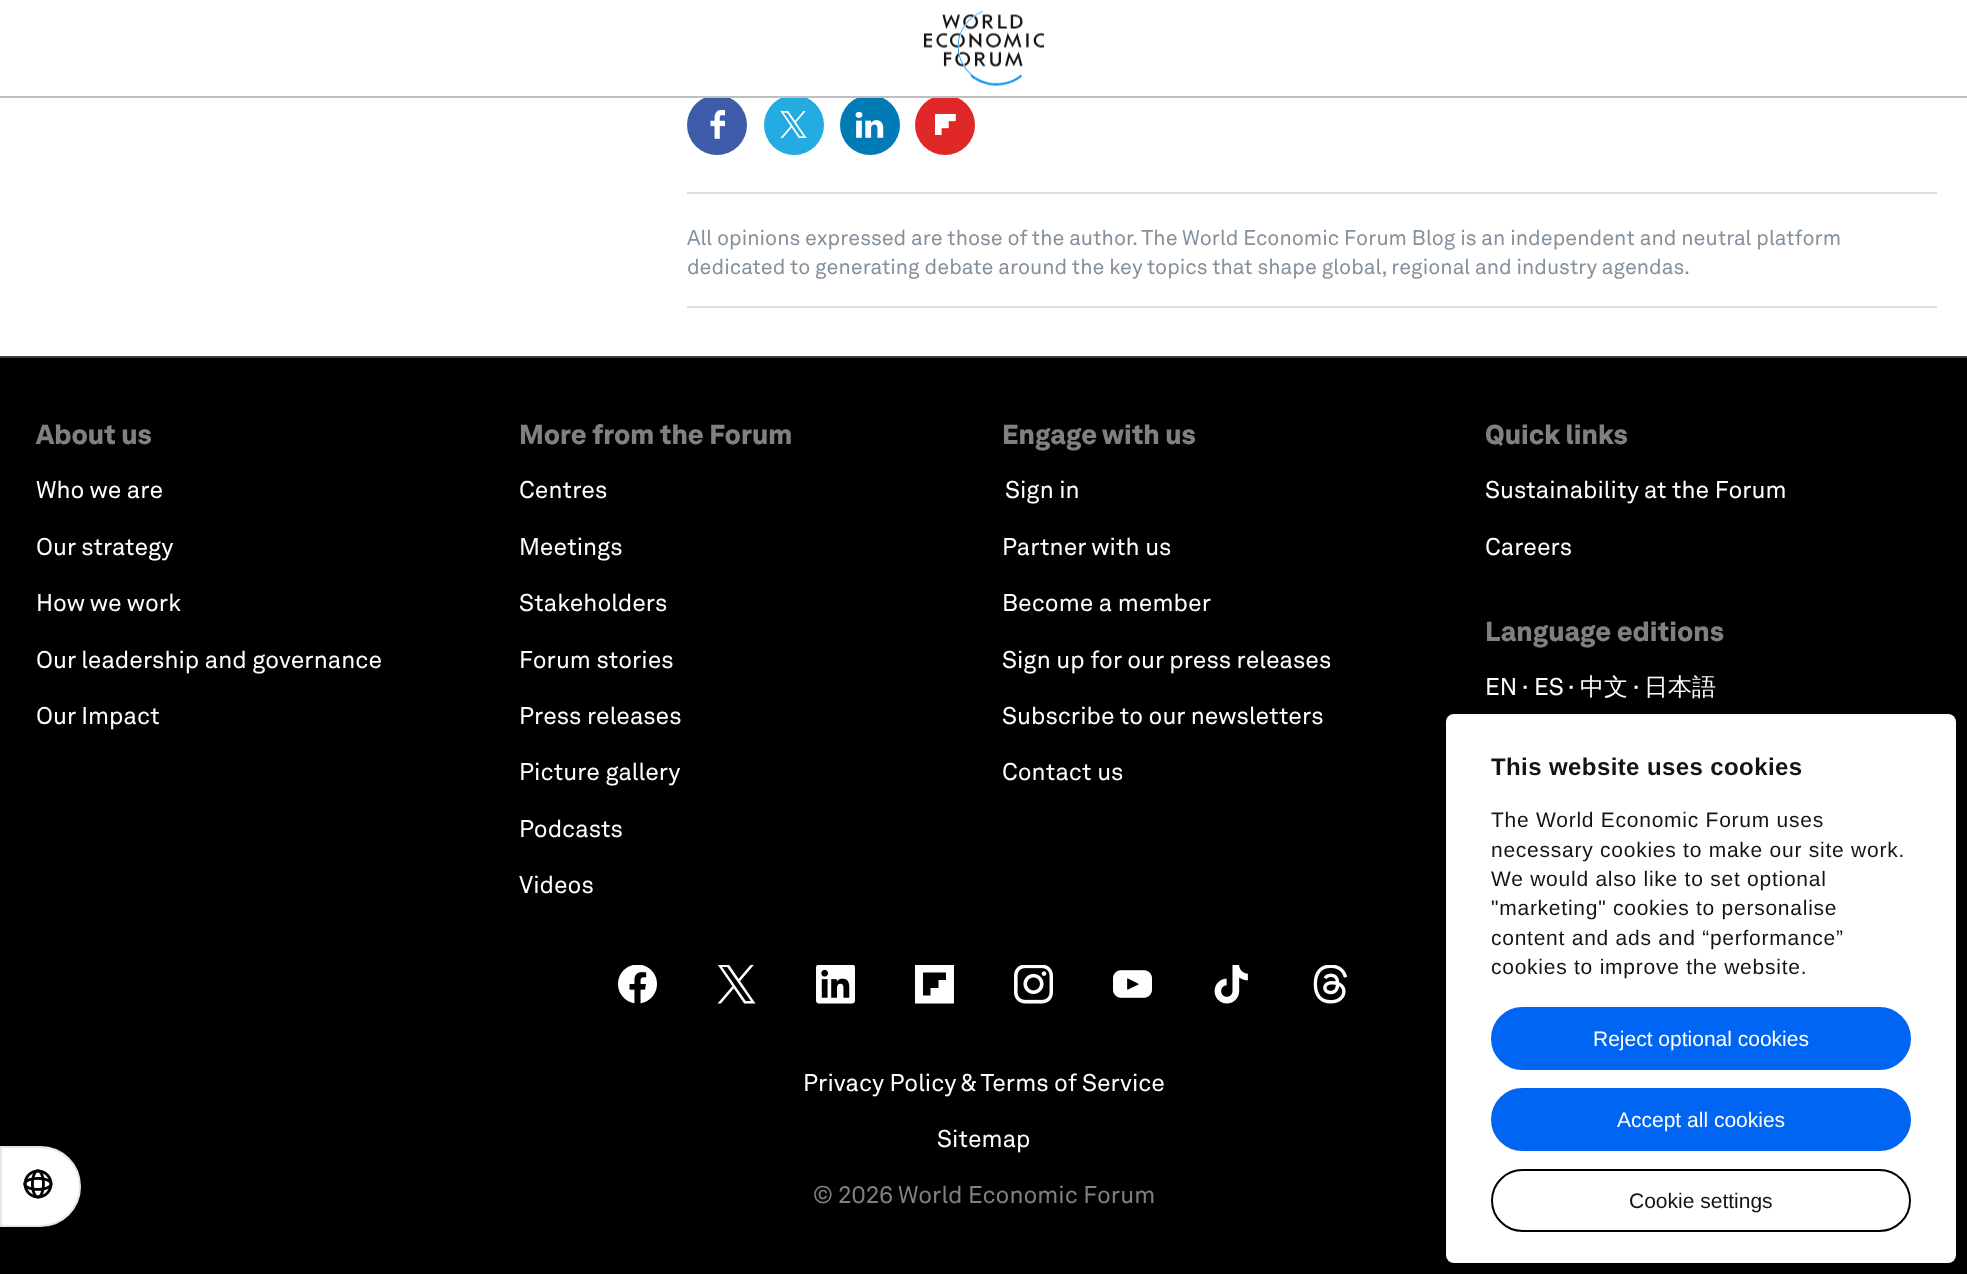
<svg xmlns="http://www.w3.org/2000/svg" width="1967" height="1274" viewBox="0 0 1967 1274">
  <defs>
    <clipPath id="clip1"><rect x="915" y="965" width="39" height="39"/></clipPath>
  </defs>
  <rect width="100%" height="100%" fill="rgb(255,255,255)"/>
  <circle cx="717" cy="125" r="30" fill="rgb(61,91,168)"/>
  <circle cx="794" cy="125" r="30" fill="rgb(36,171,226)"/>
  <circle cx="870" cy="125" r="30" fill="rgb(0,123,182)"/>
  <circle cx="945" cy="125" r="30" fill="rgb(225,40,40)"/>
  <rect x="709" y="95" width="244" height="1" fill="rgb(255,255,255)"/>
  <rect x="0" y="96" width="1967" height="2" fill="rgb(191,191,191)"/>
  <image x="924" y="10" width="120" height="76" href="pic1.png"/>
  <image x="710" y="110" width="16" height="29" href="pic2.png"/>
  <image x="780" y="111" width="27" height="27" href="pic3.png"/>
  <image x="855" y="111" width="29" height="27" href="pic4.png"/>
  <image x="935" y="114" width="21" height="21" href="pic5.png"/>
  <rect x="687" y="192" width="1250" height="2" fill="rgb(213,224,232)"/>
  <rect x="687" y="306" width="1250" height="2" fill="rgb(213,224,232)"/>
  <g font-family="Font" font-size="21" fill="rgb(132,145,156)">
    <text>
      <tspan x="687" y="245">All opinions expressed are those of the author. The World Economic Forum Blog is an independent and neutral platform</tspan>
      <tspan x="687" y="274">dedicated to generating debate around the key topics that shape global, regional and industry agendas.</tspan>
    </text>
  </g>
  <rect x="0" y="358" width="1967" height="916" fill="rgb(0,0,0)"/>
  <rect x="0" y="356" width="1967" height="2" fill="rgb(64,64,64)"/>
  <text x="36" y="444" font-family="Font" font-size="27" font-weight="900" fill="rgb(128,128,128)">About us</text>
  <g font-family="Font" font-size="24" fill="rgb(255,255,255)">
    <text x="36" y="498">Who we are</text>
    <text x="36" y="555">Our strategy</text>
    <text x="36" y="611">How we work</text>
    <text x="36" y="668">Our leadership and governance</text>
    <text x="36" y="724">Our Impact</text>
  </g>
  <text x="519" y="444" font-family="Font" font-size="27" font-weight="900" fill="rgb(128,128,128)">More from the Forum</text>
  <g font-family="Font" font-size="24" fill="rgb(255,255,255)">
    <text x="519" y="498">Centres</text>
    <text x="519" y="555">Meetings</text>
    <text x="519" y="611">Stakeholders</text>
    <text x="519" y="668">Forum stories</text>
    <text x="519" y="724">Press releases</text>
    <text x="519" y="780">Picture gallery</text>
    <text x="519" y="837">Podcasts</text>
    <text x="519" y="893">Videos</text>
  </g>
  <text x="1002" y="444" font-family="Font" font-size="27" font-weight="900" fill="rgb(128,128,128)">Engage with us</text>
  <g font-family="Font" font-size="24" fill="rgb(255,255,255)">
    <text x="1005" y="498">Sign in</text>
    <text x="1002" y="555">Partner with us</text>
    <text x="1002" y="611">Become a member</text>
    <text x="1002" y="668">Sign up for our press releases</text>
    <text x="1002" y="724">Subscribe to our newsletters</text>
    <text x="1002" y="780">Contact us</text>
  </g>
  <text x="1485" y="444" font-family="Font" font-size="27" font-weight="900" fill="rgb(128,128,128)">Quick links</text>
  <g font-family="Font" font-size="24" fill="rgb(255,255,255)">
    <text x="1485" y="498">Sustainability at the Forum</text>
    <text x="1485" y="555">Careers</text>
  </g>
  <text x="1485" y="641" font-family="Font" font-size="27" font-weight="900" fill="rgb(128,128,128)">Language editions</text>
  <text x="1485" y="695" font-family="Font" font-size="24" fill="rgb(255,255,255)">EN</text>
  <text x="1523" y="691" font-family="Liberation Sans" font-size="12" fill="rgb(255,255,255)">▪</text>
  <text x="1534" y="695" font-family="Font" font-size="24" fill="rgb(255,255,255)">ES</text>
  <text x="1569" y="691" font-family="Liberation Sans" font-size="12" fill="rgb(255,255,255)">▪</text>
  <text x="1580" y="695" font-family="WenQuanYi Zen Hei" font-size="24" font-weight="500" fill="rgb(255,255,255)">中文</text>
  <text x="1634" y="691" font-family="Liberation Sans" font-size="12" fill="rgb(255,255,255)">▪</text>
  <text x="1644" y="695" font-family="WenQuanYi Zen Hei" font-size="24" font-weight="500" fill="rgb(255,255,255)">日本語</text>
  <image x="618" y="965" width="39" height="39" href="pic6.png"/>
  <image x="717" y="965" width="39" height="39" href="pic7.png"/>
  <image x="816" y="965" width="39" height="39" href="pic8.png"/>
  <g clip-path="url(#clip1)">
    <path d="M954 964.5H915V1003.5H954ZM938.5 980H946V972.5H923V995.5H930.5V988H938.5Z" fill="rgb(255,255,255)" fill-rule="evenodd"/>
  </g>
  <image x="1014" y="965" width="39" height="39" href="pic9.png"/>
  <image x="1113" y="970" width="39" height="28" href="pic10.png"/>
  <image x="1214" y="965" width="34" height="39" href="pic11.png"/>
  <image x="1313" y="965" width="35" height="39" href="pic12.png"/>
  <g font-family="Font" font-size="24" fill="rgb(255,255,255)">
    <text x="803" y="1091">Privacy Policy &amp; Terms of Service</text>
    <text x="937" y="1147">Sitemap</text>
  </g>
  <g font-family="Font" font-size="24" fill="rgb(128,128,128)">
    <text x="813" y="1203">© 2026</text>
    <text x="898" y="1203">World Economic Forum</text>
  </g>
  <path d="M1 1147H40.5C62.5 1147 80 1164.5 80 1186.5C80 1208.5 62.5 1226 40.5 1226H1Z" fill="rgb(255,255,255)" stroke="rgb(230,230,230)" stroke-width="2"/>
  <image x="23" y="1169" width="30" height="30" href="pic13.png"/>
  <rect x="1446" y="714" width="510" height="549" rx="8" fill="rgb(255,255,255)"/>
  <text x="1491" y="775" font-family="Liberation Sans" font-size="24" font-weight="bold" letter-spacing="0.4" fill="rgb(20,20,20)">This website uses cookies</text>
  <g font-family="Liberation Sans" font-size="21" letter-spacing="0.75" fill="rgb(20,20,20)">
    <text>
      <tspan x="1491" y="827">The World Economic Forum uses</tspan>
      <tspan x="1491" y="857">necessary cookies to make our site work.</tspan>
      <tspan x="1491" y="886">We would also like to set optional</tspan>
      <tspan x="1491" y="915">"marketing" cookies to personalise</tspan>
      <tspan x="1491" y="945">content and ads and “performance”</tspan>
      <tspan x="1491" y="974">cookies to improve the website.</tspan>
    </text>
  </g>
  <rect x="1492" y="1008" width="418" height="61" rx="30.5" fill="rgb(0,101,242)" stroke="rgb(0,101,242)" stroke-width="2"/>
  <text x="1593" y="1046" font-family="Liberation Sans" font-size="21" fill="rgb(255,255,255)">Reject optional cookies</text>
  <rect x="1492" y="1089" width="418" height="61" rx="30.5" fill="rgb(0,101,242)" stroke="rgb(0,101,242)" stroke-width="2"/>
  <text x="1617" y="1127" font-family="Liberation Sans" font-size="21" fill="rgb(255,255,255)">Accept all cookies</text>
  <rect x="1492" y="1170" width="418" height="61" rx="30.5" fill="none" stroke="rgb(0,0,0)" stroke-width="2"/>
  <text x="1629" y="1208" font-family="Liberation Sans" font-size="21" fill="rgb(20,20,20)">Cookie settings</text>
</svg>
